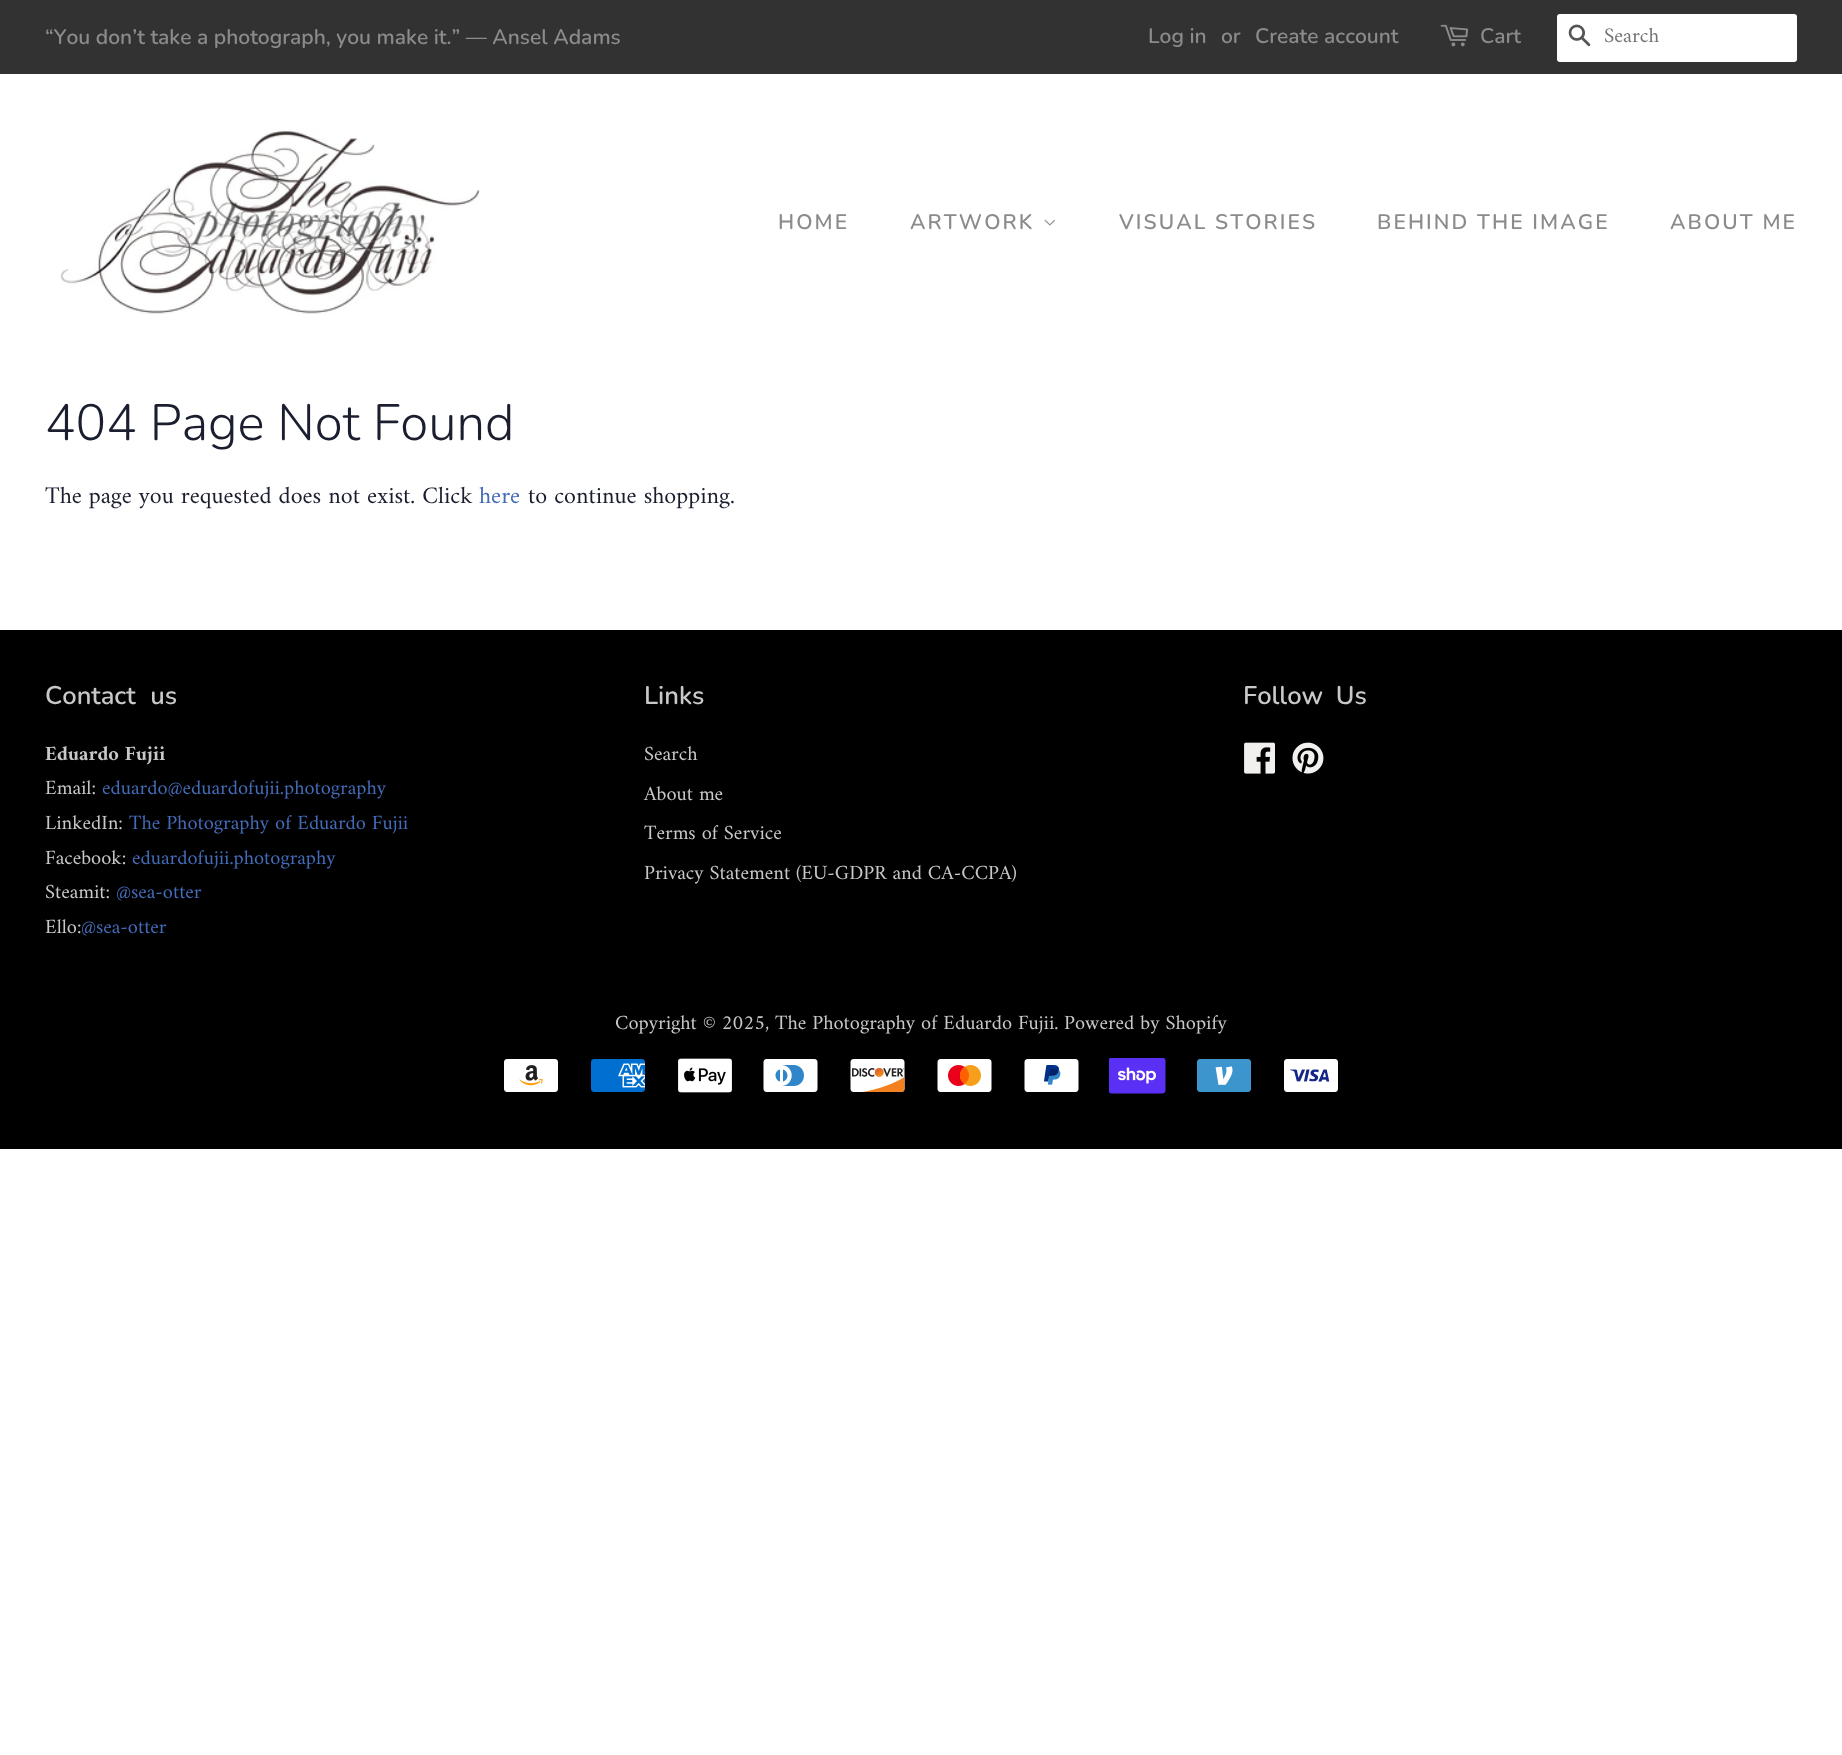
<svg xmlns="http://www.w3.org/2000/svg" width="1842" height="1755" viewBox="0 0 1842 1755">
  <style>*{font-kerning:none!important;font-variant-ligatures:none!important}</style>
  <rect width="100%" height="100%" fill="rgb(255,255,255)"/>
  <rect x="0" y="0" width="1842" height="74" fill="rgb(50,50,50)"/>
  <g font-family="Nunito" font-size="21" font-weight="600" fill="rgb(139,139,139)">
    <text x="45" y="44">“You don’t take a photograph, you make it.” — Ansel Adams</text>
    <text x="1148" y="43">Log in</text>
    <text x="1221" y="43">or</text>
    <text x="1255" y="43">Create account</text>
  </g>
  <image x="1440" y="24" width="29" height="23" href="pic1.png"/>
  <text x="1480" y="43" font-family="Nunito" font-size="21" font-weight="600" fill="rgb(139,139,139)">Cart</text>
  <rect x="1557" y="14" width="240" height="48" rx="3" fill="rgb(255,255,255)"/>
  <image x="1568" y="24" width="23" height="23" href="pic2.png"/>
  <text x="1604" y="42" font-family="Amiri" font-size="21" fill="rgb(117,117,117)">Search</text>
  <image x="61" y="129" width="420" height="185" href="pic3.png"/>
  <g font-family="Nunito" font-size="21" font-weight="600" letter-spacing="2.1" fill="rgb(139,139,139)">
    <text x="778" y="229">HOME</text>
    <text x="910" y="229">ARTWORK</text>
  </g>
  <image x="1044" y="219" width="11" height="7" href="pic4.png"/>
  <g font-family="Nunito" font-size="21" font-weight="600" letter-spacing="2.1" fill="rgb(139,139,139)">
    <text x="1119" y="229">VISUAL STORIES</text>
    <text x="1377" y="229">BEHIND THE IMAGE</text>
    <text x="1670" y="229">ABOUT ME</text>
  </g>
  <text x="45" y="440" font-family="Nunito" font-size="51" font-weight="300" fill="rgb(27,30,47)">404 Page Not Found</text>
  <text x="45" y="503" font-family="Amiri" font-size="24" fill="rgb(27,30,47)">The page you requested does not exist. Click</text>
  <text x="479" y="503" font-family="Amiri" font-size="24" fill="rgb(68,107,184)">here</text>
  <text x="528" y="503" font-family="Amiri" font-size="24" fill="rgb(27,30,47)">to continue shopping.</text>
  <rect x="0" y="630" width="1842" height="519" fill="rgb(0,0,0)"/>
  <text x="45" y="704" word-spacing="8" font-family="Nunito" font-size="25.5" font-weight="600" fill="rgb(200,200,200)">Contact us</text>
  <text x="45" y="760" font-family="Amiri" font-size="20.4" font-weight="bold" fill="rgb(200,200,200)">Eduardo Fujii</text>
  <text x="45" y="794" font-family="Amiri" font-size="20.4" fill="rgb(200,200,200)">Email:</text>
  <text x="102" y="794" font-family="Amiri" font-size="20.4" fill="rgb(68,107,184)">eduardo@eduardofujii.photography</text>
  <text x="45" y="829" font-family="Amiri" font-size="20.4" fill="rgb(200,200,200)">LinkedIn:</text>
  <text x="129" y="829" font-family="Amiri" font-size="20.4" fill="rgb(68,107,184)">The Photography of Eduardo Fujii</text>
  <text x="45" y="864" font-family="Amiri" font-size="20.4" fill="rgb(200,200,200)">Facebook:</text>
  <text x="132" y="864" font-family="Amiri" font-size="20.4" fill="rgb(68,107,184)">eduardofujii.photography</text>
  <text x="45" y="898" font-family="Amiri" font-size="20.4" fill="rgb(200,200,200)">Steamit:</text>
  <text x="116" y="898" font-family="Amiri" font-size="20.4" fill="rgb(68,107,184)">@sea-otter</text>
  <text x="45" y="933" font-family="Amiri" font-size="20.4" fill="rgb(200,200,200)">Ello:</text>
  <text x="81" y="933" font-family="Amiri" font-size="20.4" fill="rgb(68,107,184)">@sea-otter</text>
  <text x="644" y="704" font-family="Nunito" font-size="25.5" font-weight="600" fill="rgb(200,200,200)">Links</text>
  <g font-family="Amiri" font-size="20.4" fill="rgb(200,200,200)">
    <text>
      <tspan x="644" y="760">Search</tspan>
      <tspan x="644" y="800">About me</tspan>
      <tspan x="644" y="839">Terms of Service</tspan>
      <tspan x="644" y="879">Privacy Statement (EU-GDPR and CA-CCPA)</tspan>
    </text>
  </g>
  <text x="1243" y="704" word-spacing="6" font-family="Nunito" font-size="25.5" font-weight="600" fill="rgb(200,200,200)">Follow Us</text>
  <image x="1244" y="742" width="31" height="32" href="pic5.png"/>
  <image x="1292" y="742" width="32" height="32" href="pic6.png"/>
  <g font-family="Amiri" font-size="20.4" fill="rgb(200,200,200)">
    <text x="615" y="1029">Copyright © 2025, The Photography of Eduardo Fujii.</text>
    <text x="1064" y="1029">Powered by Shopify</text>
  </g>
  <image x="504" y="1059" width="54" height="33" href="pic7.png"/>
  <image x="591" y="1059" width="54" height="33" href="pic8.png"/>
  <image x="678" y="1058" width="54" height="35" href="pic9.png"/>
  <image x="763" y="1059" width="55" height="33" href="pic10.png"/>
  <image x="850" y="1059" width="55" height="33" href="pic11.png"/>
  <image x="937" y="1059" width="55" height="33" href="pic12.png"/>
  <image x="1024" y="1059" width="55" height="33" href="pic13.png"/>
  <image x="1109" y="1058" width="57" height="36" href="pic14.png"/>
  <image x="1197" y="1059" width="54" height="33" href="pic15.png"/>
  <image x="1284" y="1059" width="54" height="33" href="pic16.png"/>
</svg>
